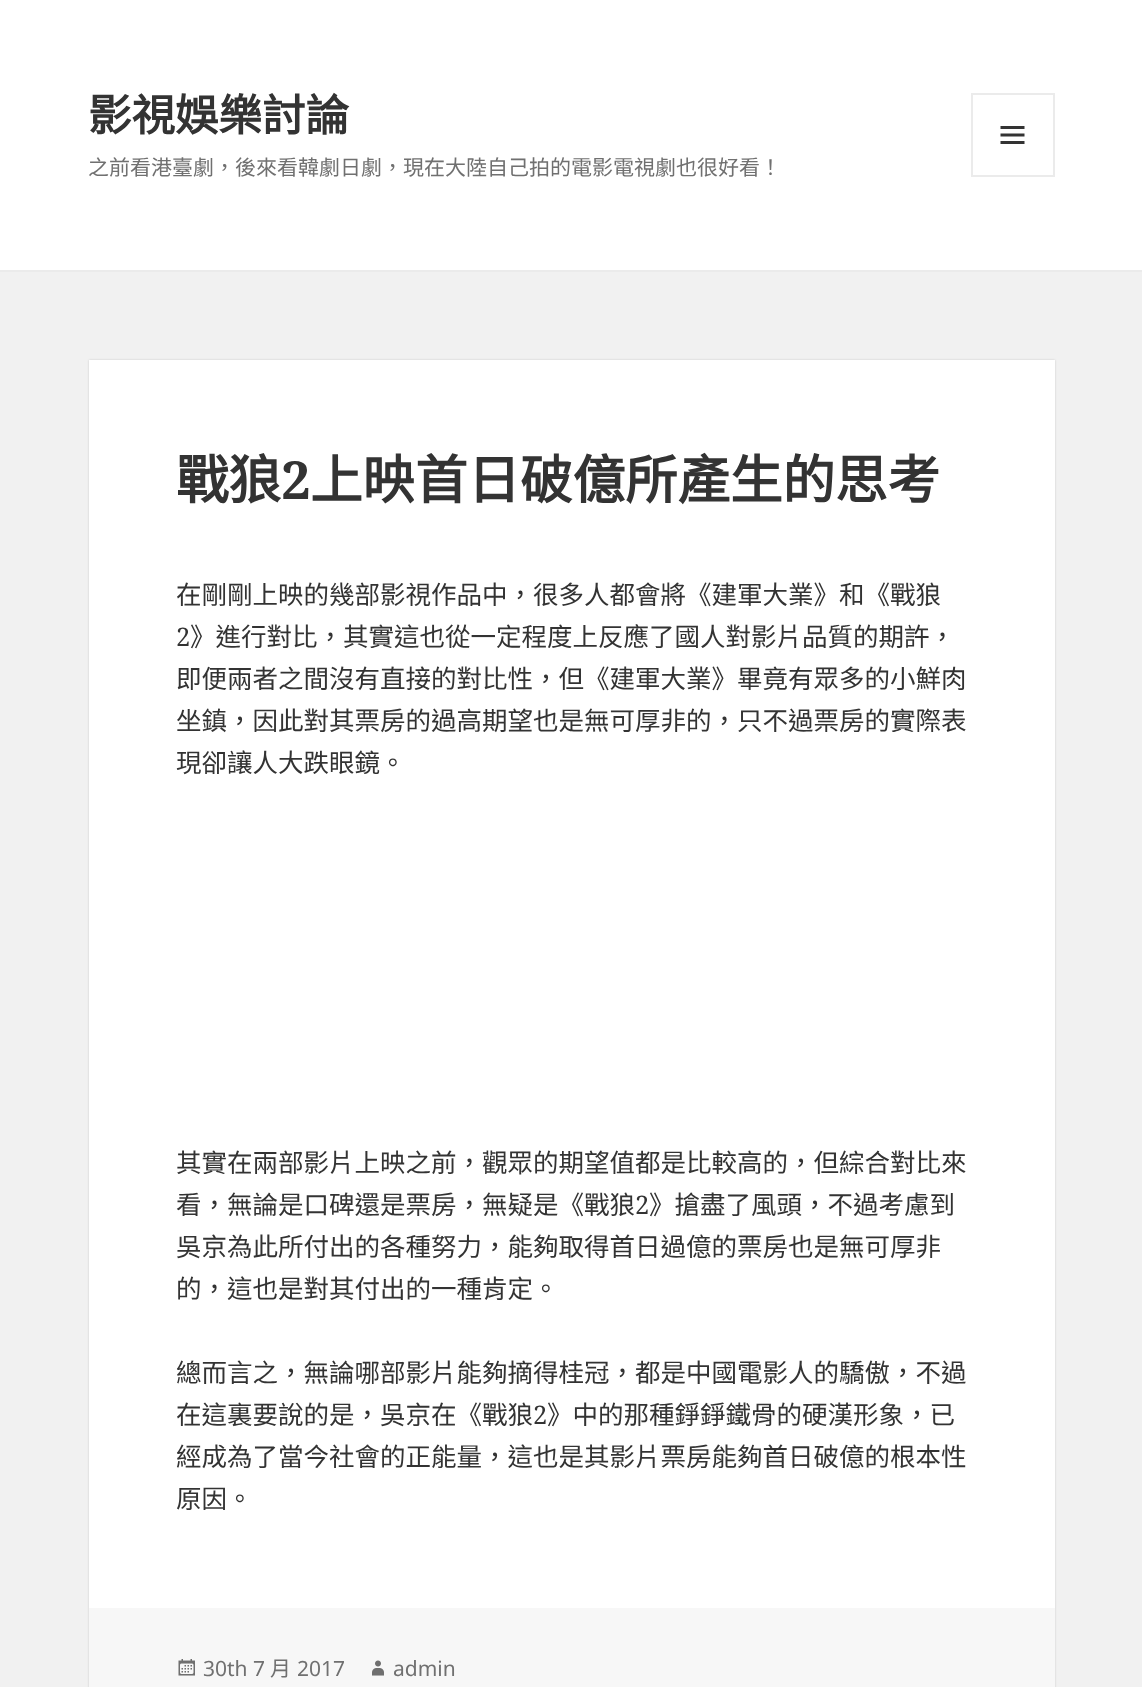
<svg xmlns="http://www.w3.org/2000/svg" width="1142" height="1687" viewBox="0 0 1142 1687">
  <rect width="100%" height="100%" fill="rgb(241,241,241)"/>
  <rect x="0" y="0" width="1142" height="270" fill="rgb(255,255,255)"/>
  <rect x="0" y="270" width="1142" height="2" fill="rgb(235,235,235)"/>
  <text x="88" y="131" font-family="Noto Sans CJK TC" font-size="43.5" font-weight="bold" fill="rgb(51,51,51)">影視娛樂討論</text>
  <rect x="972" y="94" width="82" height="82" fill="none" stroke="rgb(235,235,235)" stroke-width="2"/>
  <image x="1000" y="126" width="25" height="18" href="pic1.png"/>
  <text x="88" y="175" font-family="Noto Sans CJK TC" font-size="21" fill="rgb(112,112,112)">之前看港臺劇，後來看韓劇日劇，現在大陸自己拍的電影電視劇也很好看！</text>
  <rect x="89" y="360" width="966" height="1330" fill="rgba(0,0,0,0.15)" filter="blur(1px)"/>
  <rect x="89" y="360" width="966" height="1248" fill="rgb(255,255,255)"/>
  <text x="176" y="499" font-family="Noto Sans CJK TC" font-size="52.5" font-weight="bold" fill="rgb(51,51,51)">戰狼</text>
  <text x="281" y="499" font-family="Noto Serif" font-size="52.5" font-weight="bold" fill="rgb(51,51,51)">2</text>
  <text x="310" y="499" font-family="Noto Sans CJK TC" font-size="52.5" font-weight="bold" fill="rgb(51,51,51)">上映首日破億所產生的思考</text>
  <text x="176" y="604" font-family="Noto Sans CJK TC" font-size="25.5" fill="rgb(51,51,51)">在剛剛上映的幾部影視作品中，很多人都會將《建軍大業》和《戰狼</text>
  <text x="176" y="646" font-family="Noto Serif" font-size="25.5" fill="rgb(51,51,51)">2</text>
  <g font-family="Noto Sans CJK TC" font-size="25.5" fill="rgb(51,51,51)">
    <text x="190" y="646">》進行對比，其實這也從一定程度上反應了國人對影片品質的期許，</text>
    <text>
      <tspan x="176" y="688">即便兩者之間沒有直接的對比性，但《建軍大業》畢竟有眾多的小鮮肉</tspan>
      <tspan x="176" y="730">坐鎮，因此對其票房的過高期望也是無可厚非的，只不過票房的實際表</tspan>
      <tspan x="176" y="772">現卻讓人大跌眼鏡。</tspan>
    </text>
    <text>
      <tspan x="176" y="1172">其實在兩部影片上映之前，觀眾的期望值都是比較高的，但綜合對比來</tspan>
      <tspan x="176" y="1214">看，無論是口碑還是票房，無疑是《戰狼</tspan>
    </text>
  </g>
  <text x="635" y="1214" font-family="Noto Serif" font-size="25.5" fill="rgb(51,51,51)">2</text>
  <g font-family="Noto Sans CJK TC" font-size="25.5" fill="rgb(51,51,51)">
    <text x="649" y="1214">》搶盡了風頭，不過考慮到</text>
    <text>
      <tspan x="176" y="1256">吳京為此所付出的各種努力，能夠取得首日過億的票房也是無可厚非</tspan>
      <tspan x="176" y="1298">的，這也是對其付出的一種肯定。</tspan>
    </text>
    <text>
      <tspan x="176" y="1382">總而言之，無論哪部影片能夠摘得桂冠，都是中國電影人的驕傲，不過</tspan>
      <tspan x="176" y="1424">在這裏要說的是，吳京在《戰狼</tspan>
    </text>
  </g>
  <text x="533" y="1424" font-family="Noto Serif" font-size="25.5" fill="rgb(51,51,51)">2</text>
  <g font-family="Noto Sans CJK TC" font-size="25.5" fill="rgb(51,51,51)">
    <text x="547" y="1424">》中的那種錚錚鐵骨的硬漢形象，已</text>
    <text>
      <tspan x="176" y="1466">經成為了當今社會的正能量，這也是其影片票房能夠首日破億的根本性</tspan>
      <tspan x="176" y="1508">原因。</tspan>
    </text>
  </g>
  <rect x="89" y="1608" width="966" height="79" fill="rgb(247,247,247)"/>
  <image x="178" y="1659" width="17" height="17" href="pic2.png"/>
  <text x="203" y="1676" font-family="Noto Sans" font-size="21" fill="rgb(112,112,112)">30th 7</text>
  <text x="270" y="1676" font-family="Noto Sans CJK TC" font-size="21" fill="rgb(112,112,112)">月</text>
  <text x="297" y="1676" font-family="Noto Sans" font-size="21" fill="rgb(112,112,112)">2017</text>
  <image x="372" y="1660" width="12" height="16" href="pic3.png"/>
  <text x="393" y="1676" font-family="Noto Sans" font-size="21" fill="rgb(112,112,112)">admin</text>
</svg>
